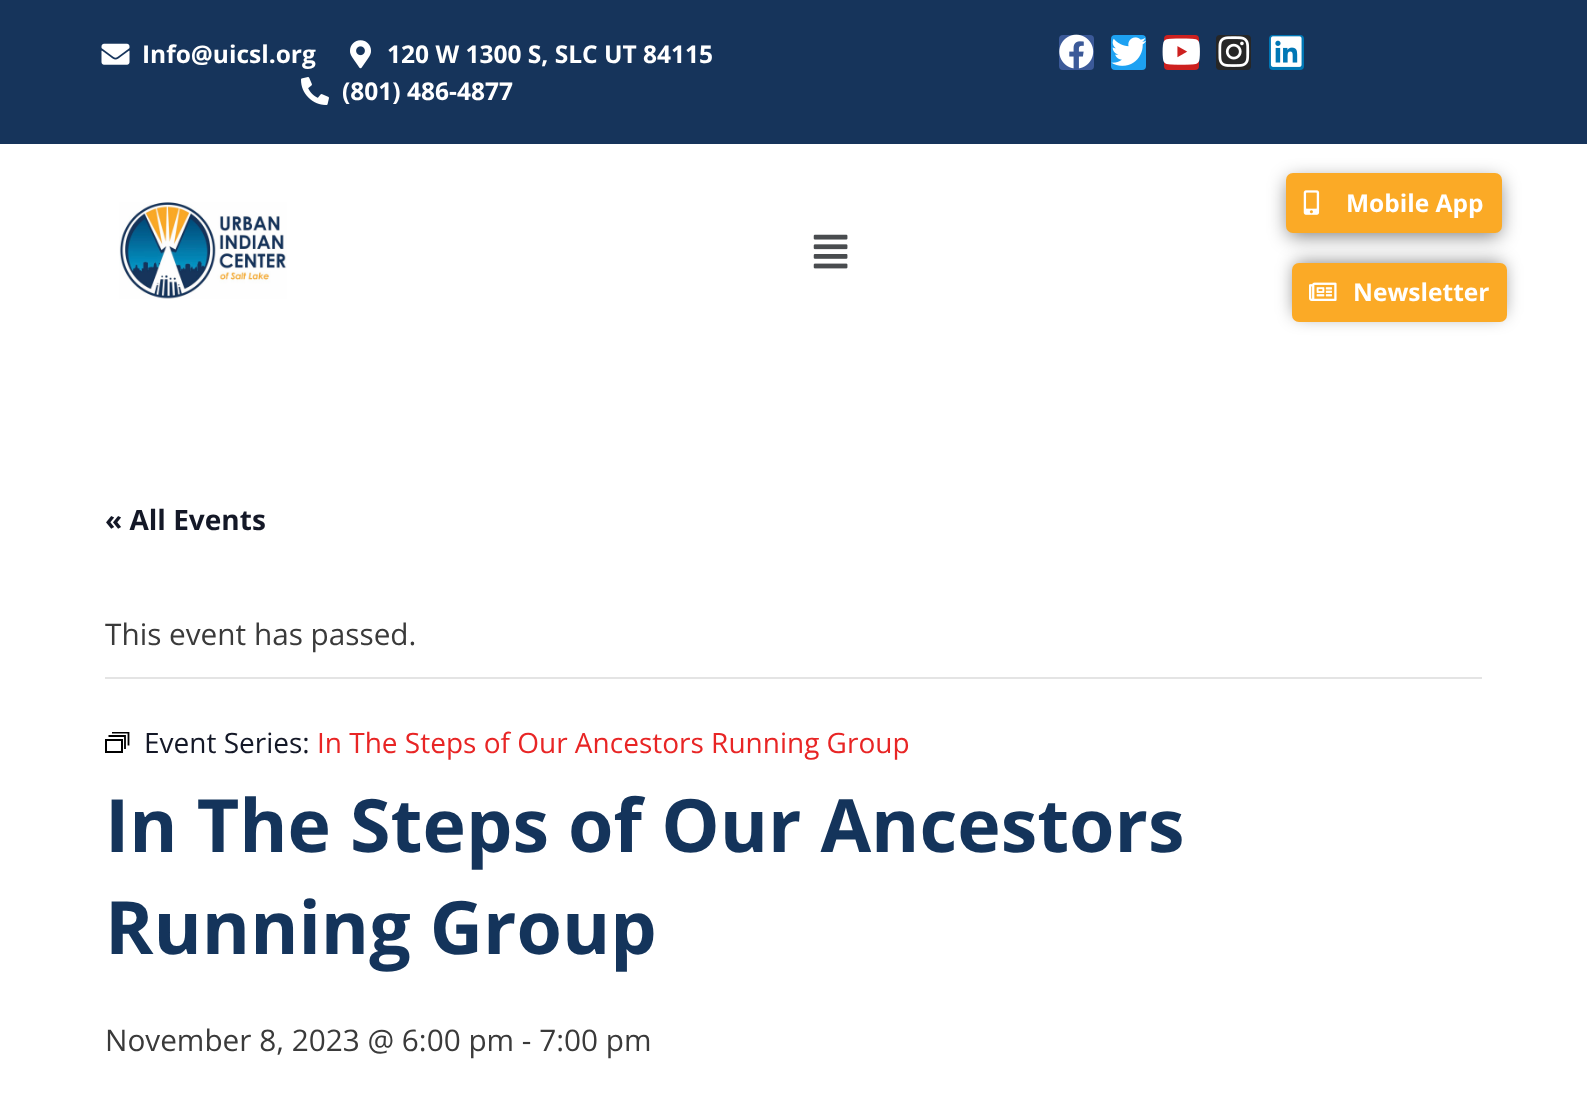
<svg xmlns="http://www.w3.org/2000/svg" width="1587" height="1102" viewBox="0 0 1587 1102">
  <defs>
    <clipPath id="clip1"><rect x="105" y="732" width="25" height="21"/></clipPath>
  </defs>
  <rect width="100%" height="100%" fill="rgb(255,255,255)"/>
  <rect x="0" y="0" width="1587" height="144" fill="rgb(22,52,91)"/>
  <image x="101" y="43" width="29" height="22" href="pic1.png"/>
  <text x="142" y="63" font-family="Open Sans" font-size="24.5" font-weight="bold" fill="rgb(255,255,255)">Info@uicsl.org</text>
  <image x="350" y="40" width="21" height="29" href="pic2.png"/>
  <text x="387" y="63" font-family="Open Sans" font-size="24.5" font-weight="bold" fill="rgb(255,255,255)">120 W 1300 S, SLC UT 84115</text>
  <image x="301" y="77" width="28" height="28" href="pic3.png"/>
  <text x="342" y="100" font-family="Open Sans" font-size="24.5" font-weight="bold" fill="rgb(255,255,255)">(801) 486-4877</text>
  <rect x="1059" y="35" width="35" height="35" rx="4" fill="rgb(59,89,152)"/>
  <image x="1059" y="34" width="35" height="35" href="pic4.png"/>
  <rect x="1111" y="35" width="35" height="35" rx="4" fill="rgb(29,161,242)"/>
  <image x="1111" y="37" width="36" height="29" href="pic5.png"/>
  <rect x="1164" y="35" width="35" height="35" rx="4" fill="rgb(205,32,31)"/>
  <image x="1162" y="38" width="38" height="27" href="pic6.png"/>
  <rect x="1216" y="35" width="35" height="35" rx="4" fill="rgb(38,38,38)"/>
  <image x="1218" y="36" width="32" height="31" href="pic7.png"/>
  <rect x="1269" y="35" width="35" height="35" rx="4" fill="rgb(0,119,181)"/>
  <image x="1270" y="36" width="32" height="31" href="pic8.png"/>
  <image x="119" y="202" width="168" height="97" href="pic9.png"/>
  <image x="813" y="234" width="35" height="35" href="pic10.png"/>
  <rect x="1288" y="180" width="212" height="56" rx="5" fill="rgba(0,0,0,0.5)" filter="blur(9.5px)"/>
  <rect x="1286" y="173" width="216" height="60" rx="7" fill="rgb(251,170,38)"/>
  <image x="1303" y="190" width="17" height="25" href="pic11.png"/>
  <text x="1346" y="212" font-family="Open Sans" font-size="24.5" font-weight="bold" fill="rgb(255,255,255)">Mobile App</text>
  <rect x="1295" y="263" width="208" height="52" rx="4" fill="rgba(0,0,0,0.5)" filter="blur(9px)"/>
  <rect x="1292" y="263" width="215" height="59" rx="7" fill="rgb(251,170,38)"/>
  <image x="1309" y="282" width="28" height="19" href="pic12.png"/>
  <text x="1353" y="301" font-family="Open Sans" font-size="24.5" font-weight="bold" fill="rgb(255,255,255)">Newsletter</text>
  <text x="105" y="530" font-family="Open Sans" font-size="28" font-weight="bold" fill="rgb(20,24,39)">« All Events</text>
  <rect x="105" y="677" width="1377" height="2" fill="rgb(228,228,228)"/>
  <text x="105" y="645" font-family="Open Sans" font-size="29.75" fill="rgb(58,58,58)">This event has passed.</text>
  <rect x="106" y="740" width="16" height="12" fill="none" stroke="rgb(0,0,0)" stroke-width="2"/>
  <path d="M108.5 736H125V749" fill="none" stroke="rgb(0,0,0)" stroke-width="1.8"/>
  <g clip-path="url(#clip1)">
    <path d="M112 732.5H128.5V745.5" fill="none" stroke="rgb(0,0,0)" stroke-width="1.8"/>
  </g>
  <text x="144" y="753" font-family="Open Sans" font-size="28" fill="rgb(20,24,39)">Event Series:</text>
  <text x="317" y="753" font-family="Open Sans" font-size="28" fill="rgb(232,37,37)">In The Steps of Our Ancestors Running Group</text>
  <g font-family="Open Sans" font-size="73.5" font-weight="bold" fill="rgb(20,52,91)">
    <text>
      <tspan x="105" y="852">In The Steps of Our Ancestors</tspan>
      <tspan x="105" y="954">Running Group</tspan>
    </text>
  </g>
  <text x="105" y="1051" font-family="Open Sans" font-size="29.75" fill="rgb(58,58,58)">November 8, 2023 @ 6:00 pm - 7:00 pm</text>
</svg>
